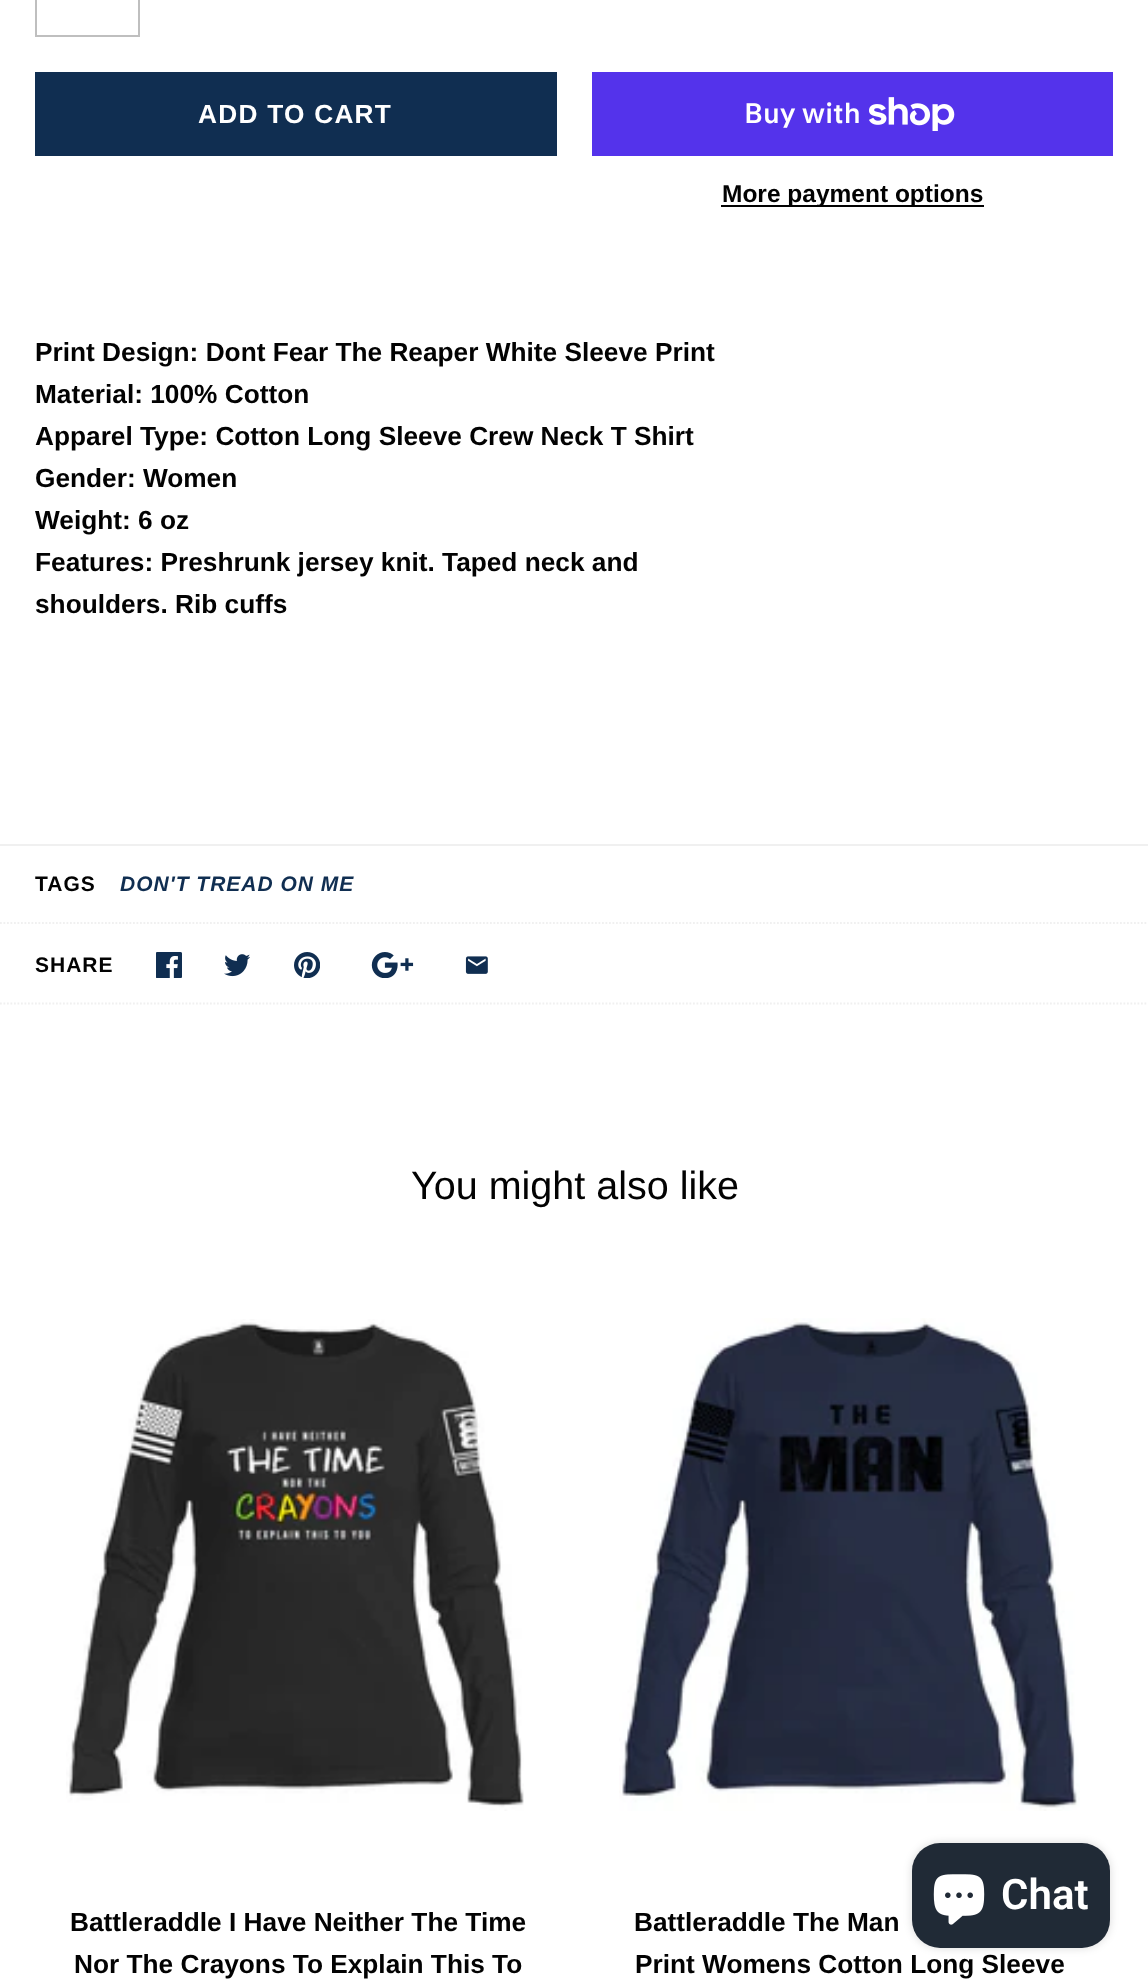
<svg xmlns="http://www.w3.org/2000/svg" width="1148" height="1984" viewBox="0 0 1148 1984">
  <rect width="100%" height="100%" fill="rgb(255,255,255)"/>
  <rect x="36" y="-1" width="103" height="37" fill="none" stroke="rgb(191,191,191)" stroke-width="2"/>
  <rect x="35" y="72" width="522" height="84" fill="rgb(16,46,81)"/>
  <text x="198" y="123" font-family="Liberation Sans" font-size="26.25" font-weight="bold" letter-spacing="1.25" fill="rgb(255,255,255)">ADD TO CART</text>
  <rect x="592" y="72" width="521" height="84" fill="rgb(84,51,235)"/>
  <text x="744" y="123" font-family="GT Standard" font-size="28" font-weight="600" fill="rgb(255,255,255)">Buy with</text>
  <image x="869" y="97" width="86" height="34" href="pic1.png"/>
  <rect x="721" y="205" width="263" height="2" fill="rgb(2,2,2)"/>
  <text x="722" y="202" font-family="Liberation Sans" font-size="24.5" font-weight="bold" fill="rgb(2,2,2)">More payment options</text>
  <g font-family="Liberation Sans" font-size="26.25" font-weight="bold" fill="rgb(2,2,2)">
    <text>
      <tspan x="35" y="361">Print Design: Dont Fear The Reaper White Sleeve Print</tspan>
      <tspan x="35" y="403">Material: 100% Cotton</tspan>
      <tspan x="35" y="445">Apparel Type: Cotton Long Sleeve Crew Neck T Shirt</tspan>
      <tspan x="35" y="487">Gender: Women</tspan>
      <tspan x="35" y="529">Weight: 6 oz</tspan>
      <tspan x="35" y="571">Features: Preshrunk jersey knit. Taped neck and</tspan>
      <tspan x="35" y="613">shoulders. Rib cuffs</tspan>
    </text>
  </g>
  <rect x="0" y="844" width="1148" height="2" fill="rgb(240,240,240)"/>
  <path d="M0 923H1148" fill="none" stroke="rgb(240,240,240)" stroke-width="1.8" stroke-dasharray="1.75 1.75"/>
  <text x="35" y="891" font-family="Liberation Sans" font-size="21" font-weight="bold" letter-spacing="1" fill="rgb(2,2,2)">TAGS</text>
  <text x="120" y="891" font-family="Liberation Sans" font-size="21" font-weight="bold" font-style="italic" letter-spacing="1" fill="rgb(16,46,81)">DON'T TREAD ON ME</text>
  <path d="M0 1003.5H1148" fill="none" stroke="rgb(240,240,240)" stroke-width="1.8" stroke-dasharray="1.75 1.75"/>
  <text x="35" y="972" font-family="Liberation Sans" font-size="21" font-weight="bold" letter-spacing="1" fill="rgb(2,2,2)">SHARE</text>
  <image x="156" y="952" width="26" height="26" href="pic2.png"/>
  <image x="224" y="954" width="26" height="23" href="pic3.png"/>
  <image x="294" y="952" width="26" height="26" href="pic4.png"/>
  <image x="371" y="952" width="43" height="26" href="pic5.png"/>
  <image x="465" y="956" width="23" height="18" href="pic6.png"/>
  <text x="411" y="1199" font-family="Liberation Sans" font-size="39.5" fill="rgb(2,2,2)">You might also like</text>
  <image x="66" y="1319" width="458" height="492" href="pic7.png"/>
  <g font-family="Liberation Sans" font-size="26.25" font-weight="bold" fill="rgb(2,2,2)">
    <text x="70" y="1931">Battleraddle I Have Neither The Time</text>
    <text x="74" y="1973">Nor The Crayons To Explain This To</text>
  </g>
  <image x="619" y="1318" width="461" height="493" href="pic8.png"/>
  <g font-family="Liberation Sans" font-size="26.25" font-weight="bold" fill="rgb(2,2,2)">
    <text x="634" y="1931">Battleraddle The Man</text>
    <text x="635" y="1973">Print Womens Cotton Long Sleeve</text>
  </g>
  <rect x="912" y="1843" width="198" height="105" rx="28" fill="rgba(0,0,0,0.15)" filter="blur(4.5px)"/>
  <rect x="912" y="1843" width="198" height="105" rx="28" fill="rgb(32,42,54)"/>
  <image x="933" y="1874" width="52" height="51" href="pic9.png"/>
  <text x="1001" y="1909" font-family="Roboto" font-size="42" font-weight="600" fill="rgb(255,255,255)">Chat</text>
</svg>
